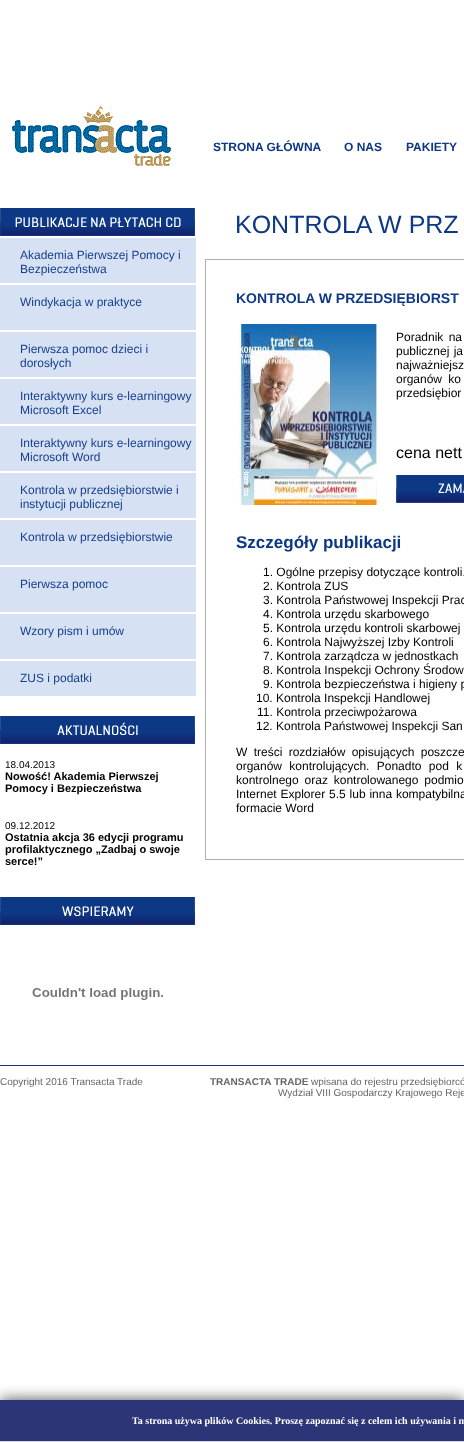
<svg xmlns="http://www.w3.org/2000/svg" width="464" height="1442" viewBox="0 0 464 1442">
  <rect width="100%" height="100%" fill="rgb(255,255,255)"/>
  <image x="12" y="105" width="159" height="61" href="pic1.png"/>
  <g font-family="Liberation Sans" font-size="12" font-weight="bold" fill="rgb(13,56,134)">
    <text x="213" y="151">STRONA GŁÓWNA</text>
    <text x="344" y="151">O NAS</text>
    <text x="406" y="151">PAKIETY</text>
  </g>
  <image x="0" y="208" width="195" height="28" href="pic2.png"/>
  <rect x="0" y="238" width="196" height="45" fill="rgb(214,225,243)"/>
  <g font-family="Liberation Sans" font-size="12" fill="rgb(22,63,142)">
    <text>
      <tspan x="20" y="259">Akademia Pierwszej Pomocy i</tspan>
      <tspan x="20" y="273">Bezpieczeństwa</tspan>
    </text>
  </g>
  <rect x="0" y="285" width="196" height="45" fill="rgb(214,225,243)"/>
  <text x="20" y="306" font-family="Liberation Sans" font-size="12" fill="rgb(22,63,142)">Windykacja w praktyce</text>
  <rect x="0" y="332" width="196" height="45" fill="rgb(214,225,243)"/>
  <g font-family="Liberation Sans" font-size="12" fill="rgb(22,63,142)">
    <text>
      <tspan x="20" y="353">Pierwsza pomoc dzieci i</tspan>
      <tspan x="20" y="367">dorosłych</tspan>
    </text>
  </g>
  <rect x="0" y="379" width="196" height="45" fill="rgb(214,225,243)"/>
  <g font-family="Liberation Sans" font-size="12" fill="rgb(22,63,142)">
    <text>
      <tspan x="20" y="400">Interaktywny kurs e-learningowy</tspan>
      <tspan x="20" y="414">Microsoft Excel</tspan>
    </text>
  </g>
  <rect x="0" y="426" width="196" height="45" fill="rgb(214,225,243)"/>
  <g font-family="Liberation Sans" font-size="12" fill="rgb(22,63,142)">
    <text>
      <tspan x="20" y="447">Interaktywny kurs e-learningowy</tspan>
      <tspan x="20" y="461">Microsoft Word</tspan>
    </text>
  </g>
  <rect x="0" y="473" width="196" height="45" fill="rgb(214,225,243)"/>
  <g font-family="Liberation Sans" font-size="12" fill="rgb(22,63,142)">
    <text>
      <tspan x="20" y="494">Kontrola w przedsiębiorstwie i</tspan>
      <tspan x="20" y="508">instytucji publicznej</tspan>
    </text>
  </g>
  <rect x="0" y="520" width="196" height="45" fill="rgb(214,225,243)"/>
  <text x="20" y="541" font-family="Liberation Sans" font-size="12" fill="rgb(22,63,142)">Kontrola w przedsiębiorstwie</text>
  <rect x="0" y="567" width="196" height="45" fill="rgb(214,225,243)"/>
  <text x="20" y="588" font-family="Liberation Sans" font-size="12" fill="rgb(22,63,142)">Pierwsza pomoc</text>
  <rect x="0" y="614" width="196" height="45" fill="rgb(214,225,243)"/>
  <text x="20" y="635" font-family="Liberation Sans" font-size="12" fill="rgb(22,63,142)">Wzory pism i umów</text>
  <rect x="0" y="661" width="196" height="35" fill="rgb(214,225,243)"/>
  <text x="20" y="682" font-family="Liberation Sans" font-size="12" fill="rgb(22,63,142)">ZUS i podatki</text>
  <image x="0" y="716" width="195" height="28" href="pic3.png"/>
  <text x="5" y="768" font-family="Liberation Sans" font-size="10" fill="rgb(0,0,0)">18.04.2013</text>
  <g font-family="Liberation Sans" font-size="11" font-weight="bold" fill="rgb(0,0,0)">
    <text>
      <tspan x="5" y="780">Nowość! Akademia Pierwszej</tspan>
      <tspan x="5" y="792">Pomocy i Bezpieczeństwa</tspan>
    </text>
  </g>
  <text x="5" y="829" font-family="Liberation Sans" font-size="10" fill="rgb(0,0,0)">09.12.2012</text>
  <g font-family="Liberation Sans" font-size="11" font-weight="bold" fill="rgb(0,0,0)">
    <text>
      <tspan x="5" y="841">Ostatnia akcja 36 edycji programu</tspan>
      <tspan x="5" y="853">profilaktycznego „Zadbaj o swoje</tspan>
      <tspan x="5" y="865">serce!”</tspan>
    </text>
  </g>
  <image x="0" y="897" width="195" height="28" href="pic4.png"/>
  <image x="32" y="988" width="131" height="12" href="pic5.png"/>
  <text x="235" y="233" font-family="Liberation Sans" font-size="25" fill="rgb(13,56,134)">KONTROLA W PRZ</text>
  <rect x="205.5" y="259.5" width="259" height="600" fill="none" stroke="rgb(176,176,176)"/>
  <text x="236" y="303" font-family="Liberation Sans" font-size="14" font-weight="bold" fill="rgb(13,56,134)">KONTROLA W PRZEDSIĘBIORST</text>
  <image x="239" y="324" width="138" height="181" href="pic6.png"/>
  <g font-family="Liberation Sans" font-size="12" fill="rgb(0,0,0)">
    <text>
      <tspan x="396" y="341" word-spacing="2">Poradnik na</tspan>
      <tspan x="396" y="355" word-spacing="1">publicznej ja</tspan>
      <tspan x="396" y="369" word-spacing="2">najważniejsz</tspan>
      <tspan x="396" y="383" word-spacing="3">organów ko</tspan>
      <tspan x="396" y="397">przedsiębior</tspan>
    </text>
  </g>
  <text x="396" y="458" font-family="Liberation Sans" font-size="16" fill="rgb(0,0,0)">cena nett</text>
  <image x="396" y="475" width="68" height="28" href="pic7.png"/>
  <text x="236" y="548" font-family="Liberation Sans" font-size="17" font-weight="bold" fill="rgb(13,56,134)">Szczegóły publikacji</text>
  <g font-family="Liberation Sans" font-size="12" fill="rgb(0,0,0)">
    <text>
      <tspan x="263" y="576">1. Ogólne przepisy dotyczące kontroli.</tspan>
      <tspan x="263" y="590">2. Kontrola ZUS</tspan>
      <tspan x="263" y="604">3. Kontrola Państwowej Inspekcji Prac</tspan>
      <tspan x="263" y="618">4. Kontrola urzędu skarbowego</tspan>
      <tspan x="263" y="632">5. Kontrola urzędu kontroli skarbowej</tspan>
      <tspan x="263" y="646">6. Kontrola Najwyższej Izby Kontroli</tspan>
      <tspan x="263" y="660">7. Kontrola zarządcza w jednostkach</tspan>
      <tspan x="263" y="674">8. Kontrola Inspekcji Ochrony Środow</tspan>
      <tspan x="263" y="688">9. Kontrola bezpieczeństwa i higieny p</tspan>
    </text>
    <text x="256" y="702">10. Kontrola Inspekcji Handlowej</text>
    <text x="257" y="716">11. Kontrola przeciwpożarowa</text>
    <text x="256" y="730">12. Kontrola Państwowej Inspekcji San</text>
    <text>
      <tspan x="236" y="756" word-spacing="3">W treści rozdziałów opisujących poszcze</tspan>
      <tspan x="236" y="770" word-spacing="4">organów kontrolujących. Ponadto pod k</tspan>
      <tspan x="236" y="784" word-spacing="2.5">kontrolnego oraz kontrolowanego podmio</tspan>
      <tspan x="236" y="798" word-spacing="0.5">Internet Explorer 5.5 lub inna kompatybilna</tspan>
      <tspan x="236" y="812">formacie Word</tspan>
    </text>
  </g>
  <rect x="0" y="1065" width="464" height="1" fill="rgb(12,56,134)"/>
  <text x="0" y="1085" font-family="Liberation Sans" font-size="10" fill="rgb(102,102,102)">Copyright 2016 Transacta Trade</text>
  <text x="210" y="1085" font-family="Liberation Sans" font-size="10" font-weight="bold" fill="rgb(102,102,102)">TRANSACTA TRADE</text>
  <g font-family="Liberation Sans" font-size="10" fill="rgb(102,102,102)">
    <text x="311" y="1085">wpisana do rejestru przedsiębiorcó</text>
    <text x="278" y="1096">Wydział VIII Gospodarczy Krajowego Reje</text>
  </g>
  <rect x="0" y="1400" width="464" height="42" fill="rgba(26,26,26,0.8)" filter="blur(7.5px)"/>
  <rect x="0" y="1400" width="464" height="41" fill="rgb(44,53,120)"/>
  <rect x="0" y="1441" width="464" height="1" fill="rgb(215,213,213)"/>
  <text x="132" y="1424" font-family="Liberation Serif" font-size="10" font-weight="bold" fill="rgb(255,255,255)">Ta strona używa plików Cookies. Proszę zapoznać się z celem ich używania i m</text>
</svg>
